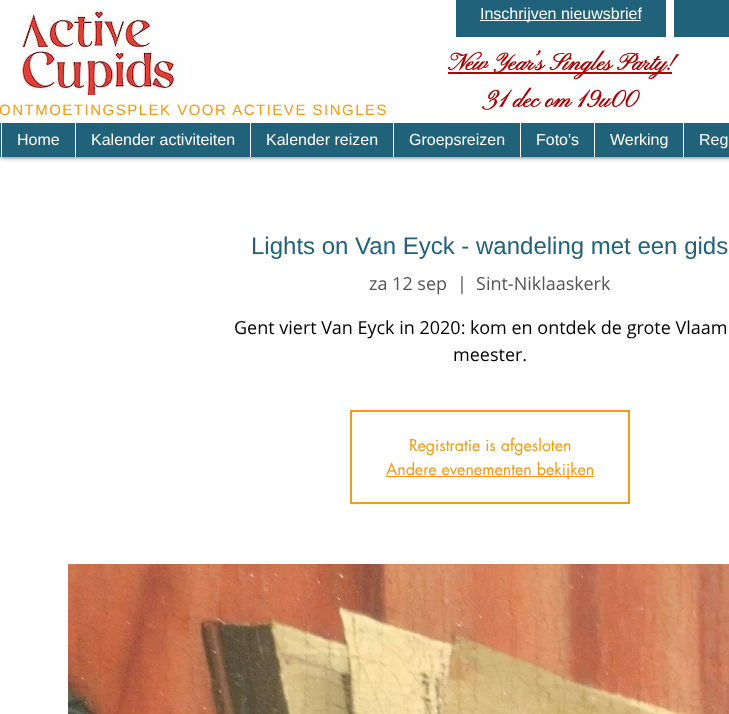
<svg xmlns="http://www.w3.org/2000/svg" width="729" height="714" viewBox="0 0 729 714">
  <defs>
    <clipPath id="clip1"><rect x="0" y="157" width="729" height="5"/></clipPath>
  </defs>
  <rect width="100%" height="100%" fill="rgb(255,255,255)"/>
  <g clip-path="url(#clip1)">
    <rect x="0" y="0" width="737" height="157" fill="rgba(0,0,0,0.7)" filter="blur(2.5px)"/>
  </g>
  <image x="20" y="10" width="160" height="85" href="pic1.png"/>
  <rect x="456" y="0" width="210" height="37" fill="rgb(32,98,122)"/>
  <rect x="480" y="20" width="161" height="1" fill="rgb(255,255,255)"/>
  <text x="480" y="19" font-family="Liberation Sans" font-size="16" fill="rgb(255,255,255)">Inschrijven nieuwsbrief</text>
  <rect x="674" y="0" width="55" height="37" fill="rgb(32,98,122)"/>
  <text x="-1" y="115" font-family="Liberation Sans" font-size="15" letter-spacing="1.5" fill="rgb(247,154,14)">ONTMOETINGSPLEK VOOR ACTIEVE SINGLES</text>
  <rect x="448" y="72" width="224" height="2" fill="rgb(172,4,4)"/>
  <g font-family="Pinyon Script" font-size="24" font-weight="bold" fill="rgb(172,4,4)">
    <text x="448" y="70">New Year’s Singles Party!</text>
    <text x="483" y="107">31 dec om 19u00</text>
  </g>
  <rect x="0" y="123" width="729" height="34" fill="rgb(32,98,122)"/>
  <rect x="1" y="123" width="1" height="34" fill="rgb(255,255,255)"/>
  <text x="17" y="145" font-family="Liberation Sans" font-size="16" fill="rgb(255,255,255)">Home</text>
  <rect x="75" y="123" width="1" height="34" fill="rgb(255,255,255)"/>
  <text x="91" y="145" font-family="Liberation Sans" font-size="16" fill="rgb(255,255,255)">Kalender activiteiten</text>
  <rect x="250" y="123" width="1" height="34" fill="rgb(255,255,255)"/>
  <text x="266" y="145" font-family="Liberation Sans" font-size="16" fill="rgb(255,255,255)">Kalender reizen</text>
  <rect x="393" y="123" width="1" height="34" fill="rgb(255,255,255)"/>
  <text x="409" y="145" font-family="Liberation Sans" font-size="16" fill="rgb(255,255,255)">Groepsreizen</text>
  <rect x="520" y="123" width="1" height="34" fill="rgb(255,255,255)"/>
  <text x="536" y="145" font-family="Liberation Sans" font-size="16" fill="rgb(255,255,255)">Foto's</text>
  <rect x="594" y="123" width="1" height="34" fill="rgb(255,255,255)"/>
  <text x="610" y="145" font-family="Liberation Sans" font-size="16" fill="rgb(255,255,255)">Werking</text>
  <rect x="683" y="123" width="1" height="34" fill="rgb(255,255,255)"/>
  <text x="699" y="145" font-family="Liberation Sans" font-size="16" fill="rgb(255,255,255)">Reg</text>
  <text x="251" y="254" font-family="Liberation Sans" font-size="24" fill="rgb(32,98,122)">Lights on Van Eyck - wandeling met een gids</text>
  <g font-family="Open Sans" font-size="18" fill="rgb(84,84,84)">
    <text x="369" y="290">za 12 sep</text>
    <text x="457" y="290">|</text>
    <text x="476" y="290">Sint-Niklaaskerk</text>
  </g>
  <g font-family="Open Sans" font-size="18" fill="rgb(0,0,0)">
    <text x="234" y="334">Gent viert Van Eyck in 2020: kom en ontdek de grote Vlaam</text>
    <text x="453" y="361">meester.</text>
  </g>
  <rect x="351" y="411" width="278" height="92" fill="none" stroke="rgb(247,154,14)" stroke-width="2"/>
  <text x="409" y="451" font-family="futura" font-size="16" fill="rgb(247,154,14)">Registratie is afgesloten</text>
  <rect x="386" y="476" width="208" height="1" fill="rgb(247,154,14)"/>
  <text x="386" y="475" font-family="futura" font-size="16" fill="rgb(247,154,14)">Andere evenementen bekijken</text>
  <image x="68" y="564" width="661" height="150" href="pic2.png"/>
</svg>
